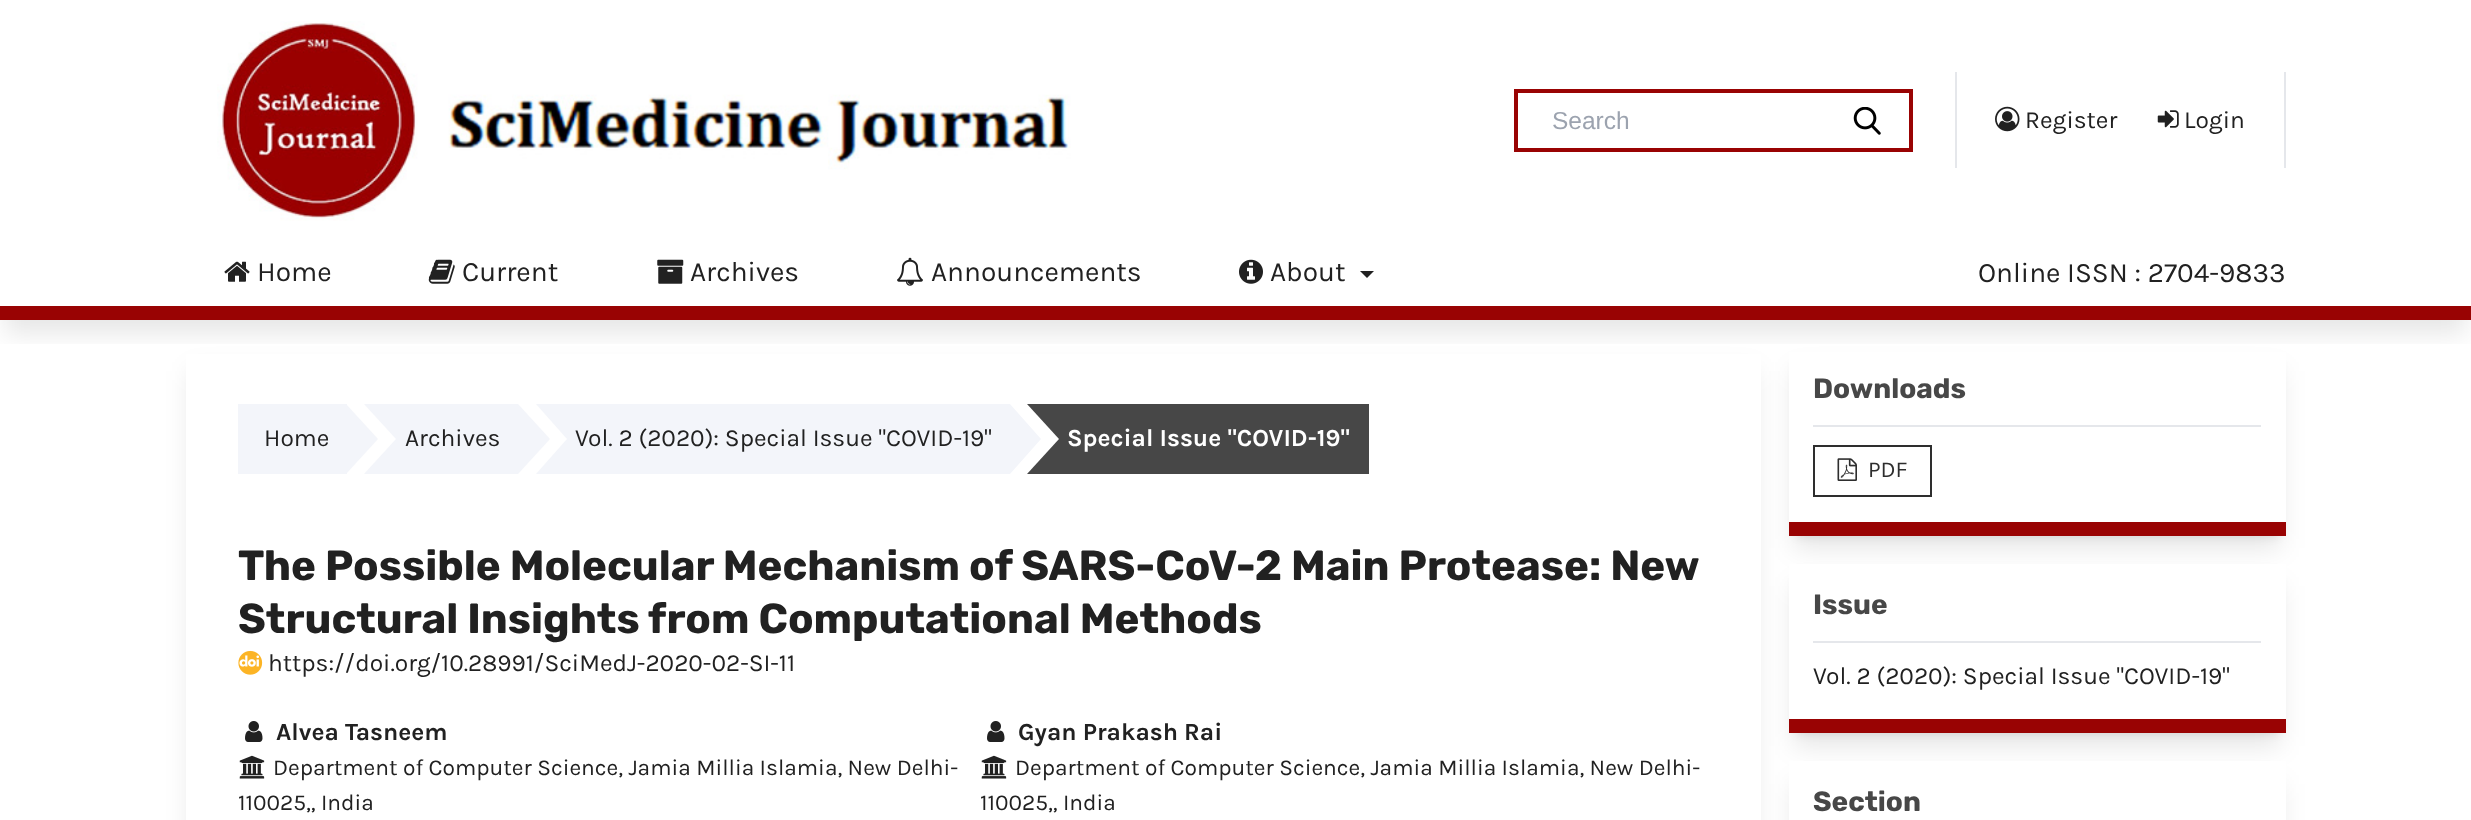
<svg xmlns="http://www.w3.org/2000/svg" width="2471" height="820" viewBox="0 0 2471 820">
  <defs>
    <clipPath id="clip1"><rect x="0" y="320" width="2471" height="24"/></clipPath>
  </defs>
  <rect width="100%" height="100%" fill="rgb(255,255,255)"/>
  <image x="217" y="21" width="854" height="200" href="pic1.png"/>
  <rect x="1516" y="91" width="395" height="59" fill="none" stroke="rgb(153,3,3)" stroke-width="4"/>
  <text x="1552" y="129" font-family="Liberation Sans" font-size="24.5" fill="rgb(156,163,175)">Search</text>
  <image x="1853" y="107" width="28" height="28" href="pic2.png"/>
  <rect x="2284" y="72" width="2" height="96" fill="rgb(229,231,235)"/>
  <rect x="1955" y="72" width="2" height="96" fill="rgb(229,231,235)"/>
  <image x="1995" y="106" width="25" height="26" href="pic3.png"/>
  <text x="2025" y="128" font-family="Karla" font-size="24.5" fill="rgb(33,33,33)">Register</text>
  <image x="2157" y="110" width="22" height="18" href="pic4.png"/>
  <text x="2184" y="128" font-family="Karla" font-size="24.5" fill="rgb(33,33,33)">Login</text>
  <rect x="191" y="371" width="1564" height="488" fill="rgba(0,0,0,0.1)" filter="blur(13px)"/>
  <rect x="186" y="354" width="1575" height="466" fill="rgb(255,255,255)"/>
  <rect x="1796" y="362" width="483" height="174" fill="rgba(0,0,0,0.1)" filter="blur(5px)"/>
  <rect x="1794" y="371" width="486" height="177" fill="rgba(0,0,0,0.1)" filter="blur(13px)"/>
  <rect x="1789" y="352" width="497" height="170" fill="rgb(255,255,255)"/>
  <g clip-path="url(#clip1)">
    <rect x="5" y="264" width="2461" height="69" fill="rgba(0,0,0,0.1)" filter="blur(13px)"/>
  </g>
  <rect x="0" y="306" width="2471" height="14" fill="rgb(153,3,3)"/>
  <image x="224" y="261" width="26" height="21" href="pic5.png"/>
  <text x="257" y="281" font-family="Karla" font-size="28" fill="rgb(33,33,33)">Home</text>
  <image x="428" y="259" width="27" height="25" href="pic6.png"/>
  <text x="462" y="281" font-family="Karla" font-size="28" fill="rgb(33,33,33)">Current</text>
  <image x="657" y="259" width="27" height="25" href="pic7.png"/>
  <text x="690" y="281" font-family="Karla" font-size="28" fill="rgb(33,33,33)">Archives</text>
  <image x="897" y="257" width="26" height="29" href="pic8.png"/>
  <text x="931" y="281" font-family="Karla" font-size="28" fill="rgb(33,33,33)">Announcements</text>
  <image x="1239" y="259" width="24" height="25" href="pic9.png"/>
  <text x="1270" y="281" font-family="Karla" font-size="28" fill="rgb(33,33,33)">About</text>
  <path d="M1360 271H1374L1367 278Z" fill="rgb(33,33,33)"/>
  <text x="1978" y="282" font-family="Karla" font-size="28" fill="rgb(33,33,33)">Online ISSN : 2704-9833</text>
  <rect x="238" y="404" width="109" height="70" fill="rgb(243,245,250)"/>
  <text x="264" y="446" font-family="Karla" font-size="24.5" fill="rgb(33,33,33)">Home</text>
  <rect x="364" y="404" width="154" height="70" fill="rgb(243,245,250)"/>
  <path d="M364 474V404L396 439Z" fill="rgb(255,255,255)"/>
  <path d="M346 474V404L378 439Z" fill="rgb(243,245,250)"/>
  <text x="405" y="446" font-family="Karla" font-size="24.5" fill="rgb(33,33,33)">Archives</text>
  <rect x="536" y="404" width="474" height="70" fill="rgb(243,245,250)"/>
  <path d="M536 474V404L567 439Z" fill="rgb(255,255,255)"/>
  <path d="M518 474V404L550 439Z" fill="rgb(243,245,250)"/>
  <text x="575" y="446" font-family="Karla" font-size="24.5" fill="rgb(33,33,33)">Vol. 2 (2020): Special Issue "COVID-19"</text>
  <rect x="1027" y="404" width="342" height="70" fill="rgb(71,71,71)"/>
  <path d="M1027 474V404L1059 439Z" fill="rgb(255,255,255)"/>
  <path d="M1010 474V404L1041 439Z" fill="rgb(243,245,250)"/>
  <text x="1067" y="446" font-family="Karla" font-size="24.5" font-weight="bold" fill="rgb(255,255,255)">Special Issue "COVID-19"</text>
  <g font-family="Rubik" font-size="42" font-weight="bold" fill="rgb(33,33,33)">
    <text>
      <tspan x="238" y="580">The Possible Molecular Mechanism of SARS-CoV-2 Main Protease: New</tspan>
      <tspan x="238" y="633">Structural Insights from Computational Methods</tspan>
    </text>
  </g>
  <image x="238" y="650" width="25" height="25" href="pic10.png"/>
  <text x="268" y="671" font-family="Karla" font-size="24.5" fill="rgb(33,33,33)">https://doi.org/10.28991/SciMedJ-2020-02-SI-11</text>
  <image x="245" y="721" width="18" height="21" href="pic11.png"/>
  <text x="276" y="740" font-family="Karla" font-size="24.5" font-weight="bold" fill="rgb(33,33,33)">Alvea Tasneem</text>
  <image x="239" y="755" width="26" height="24" href="pic12.png"/>
  <g font-family="Karla" font-size="22.75" fill="rgb(33,33,33)">
    <text x="273" y="775">Department of Computer Science, Jamia Millia Islamia, New Delhi-</text>
    <text x="238" y="810">110025,, India</text>
  </g>
  <image x="987" y="721" width="18" height="21" href="pic11.png"/>
  <text x="1018" y="740" font-family="Karla" font-size="24.5" font-weight="bold" fill="rgb(33,33,33)">Gyan Prakash Rai</text>
  <image x="981" y="755" width="26" height="24" href="pic12.png"/>
  <g font-family="Karla" font-size="22.75" fill="rgb(33,33,33)">
    <text x="1015" y="775">Department of Computer Science, Jamia Millia Islamia, New Delhi-</text>
    <text x="980" y="810">110025,, India</text>
  </g>
  <rect x="1789" y="522" width="497" height="14" fill="rgb(153,3,3)"/>
  <rect x="1813" y="425" width="448" height="2" fill="rgb(229,231,235)"/>
  <text x="1813" y="398" font-family="Rubik" font-size="28" font-weight="bold" fill="rgb(71,71,71)">Downloads</text>
  <rect x="1814" y="446" width="117" height="50" fill="none" stroke="rgb(46,46,46)" stroke-width="2"/>
  <image x="1837" y="458" width="20" height="23" href="pic13.png"/>
  <text x="1868" y="477" font-family="Karla" font-size="22.75" fill="rgb(46,46,46)">PDF</text>
  <rect x="1796" y="578" width="483" height="155" fill="rgba(0,0,0,0.1)" filter="blur(5px)"/>
  <rect x="1794" y="586" width="486" height="160" fill="rgba(0,0,0,0.1)" filter="blur(13px)"/>
  <rect x="1789" y="564" width="497" height="155" fill="rgb(255,255,255)"/>
  <rect x="1789" y="719" width="497" height="14" fill="rgb(153,3,3)"/>
  <rect x="1813" y="641" width="448" height="2" fill="rgb(229,231,235)"/>
  <text x="1813" y="614" font-family="Rubik" font-size="28" font-weight="bold" fill="rgb(71,71,71)">Issue</text>
  <text x="1813" y="684" font-family="Karla" font-size="24.5" fill="rgb(33,33,33)">Vol. 2 (2020): Special Issue "COVID-19"</text>
  <rect x="1794" y="784" width="486" height="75" fill="rgba(0,0,0,0.1)" filter="blur(13px)"/>
  <rect x="1789" y="761" width="497" height="59" fill="rgb(255,255,255)"/>
  <text x="1813" y="811" font-family="Rubik" font-size="28" font-weight="bold" fill="rgb(71,71,71)">Section</text>
</svg>
